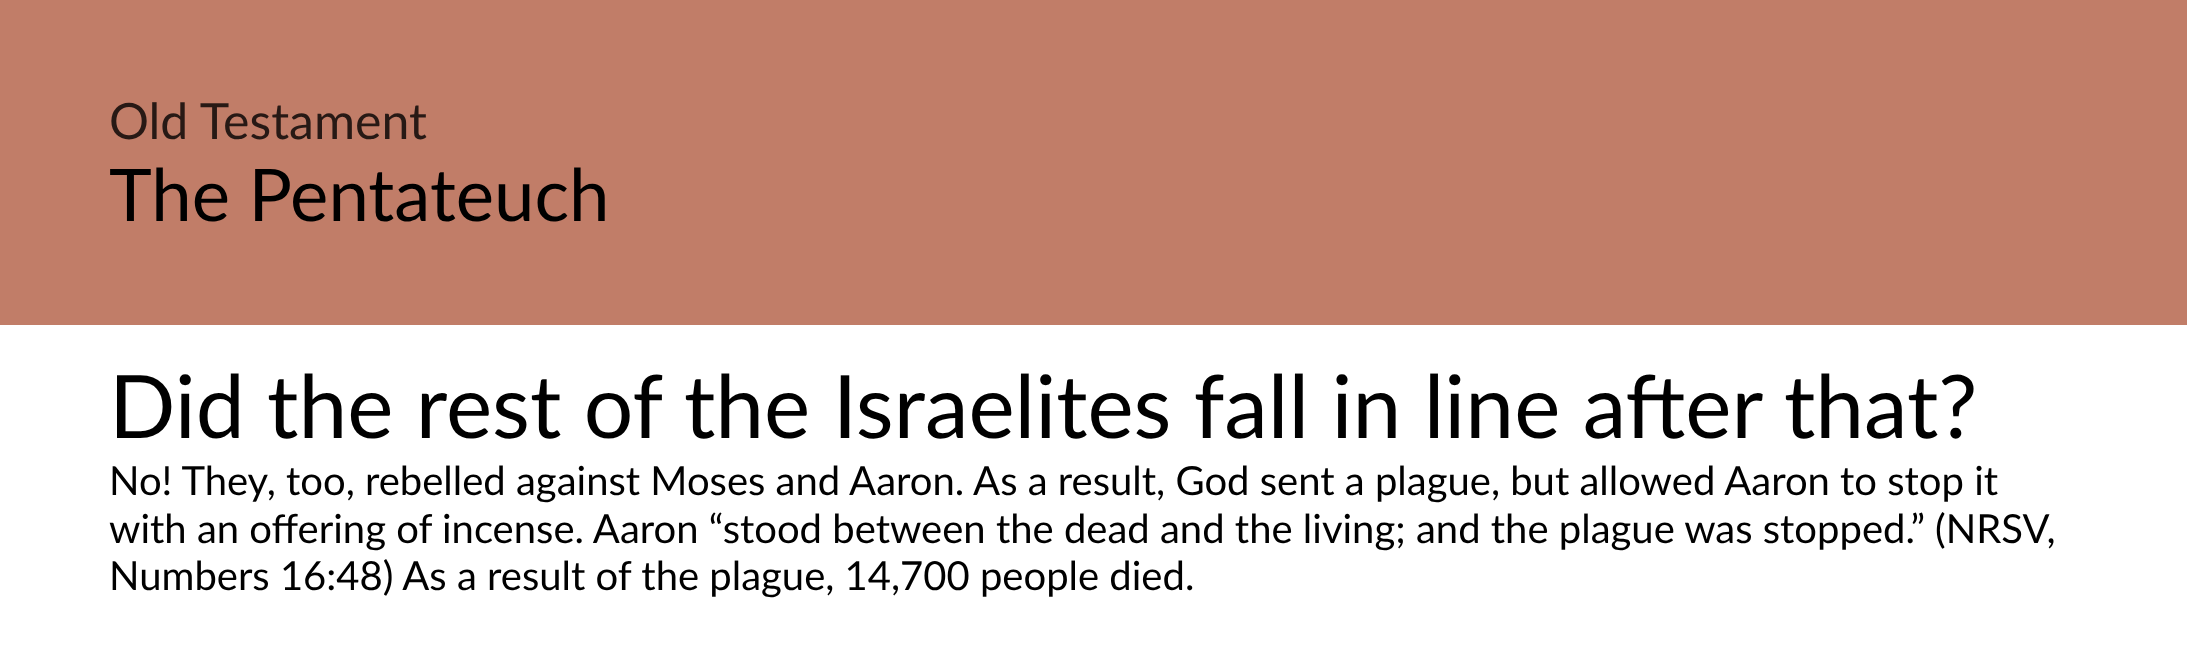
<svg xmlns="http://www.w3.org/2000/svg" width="2187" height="671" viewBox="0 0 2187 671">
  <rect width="100%" height="100%" fill="rgb(255,255,255)"/>
  <rect x="0" y="0" width="2187" height="325" fill="rgb(193,125,104)"/>
  <text x="109" y="139" font-family="Lato" font-size="50" fill="rgb(39,25,21)">Old Testament</text>
  <text x="109" y="221" font-family="Lato" font-size="72.5" fill="rgb(0,0,0)">The Pentateuch</text>
  <text x="109" y="438" font-family="Lato" font-size="87.5" fill="rgb(0,0,0)">Did the rest of the Israelites fall in line after that?</text>
  <g font-family="Lato" font-size="40" fill="rgb(0,0,0)">
    <text>
      <tspan x="109" y="495">No! They, too, rebelled against Moses and Aaron. As a result, God sent a plague, but allowed Aaron to stop it</tspan>
      <tspan x="109" y="543">with an offering of incense. Aaron “stood between the dead and the living; and the plague was stopped.” (NRSV,</tspan>
      <tspan x="109" y="590">Numbers 16:48) As a result of the plague, 14,700 people died.</tspan>
    </text>
  </g>
</svg>
